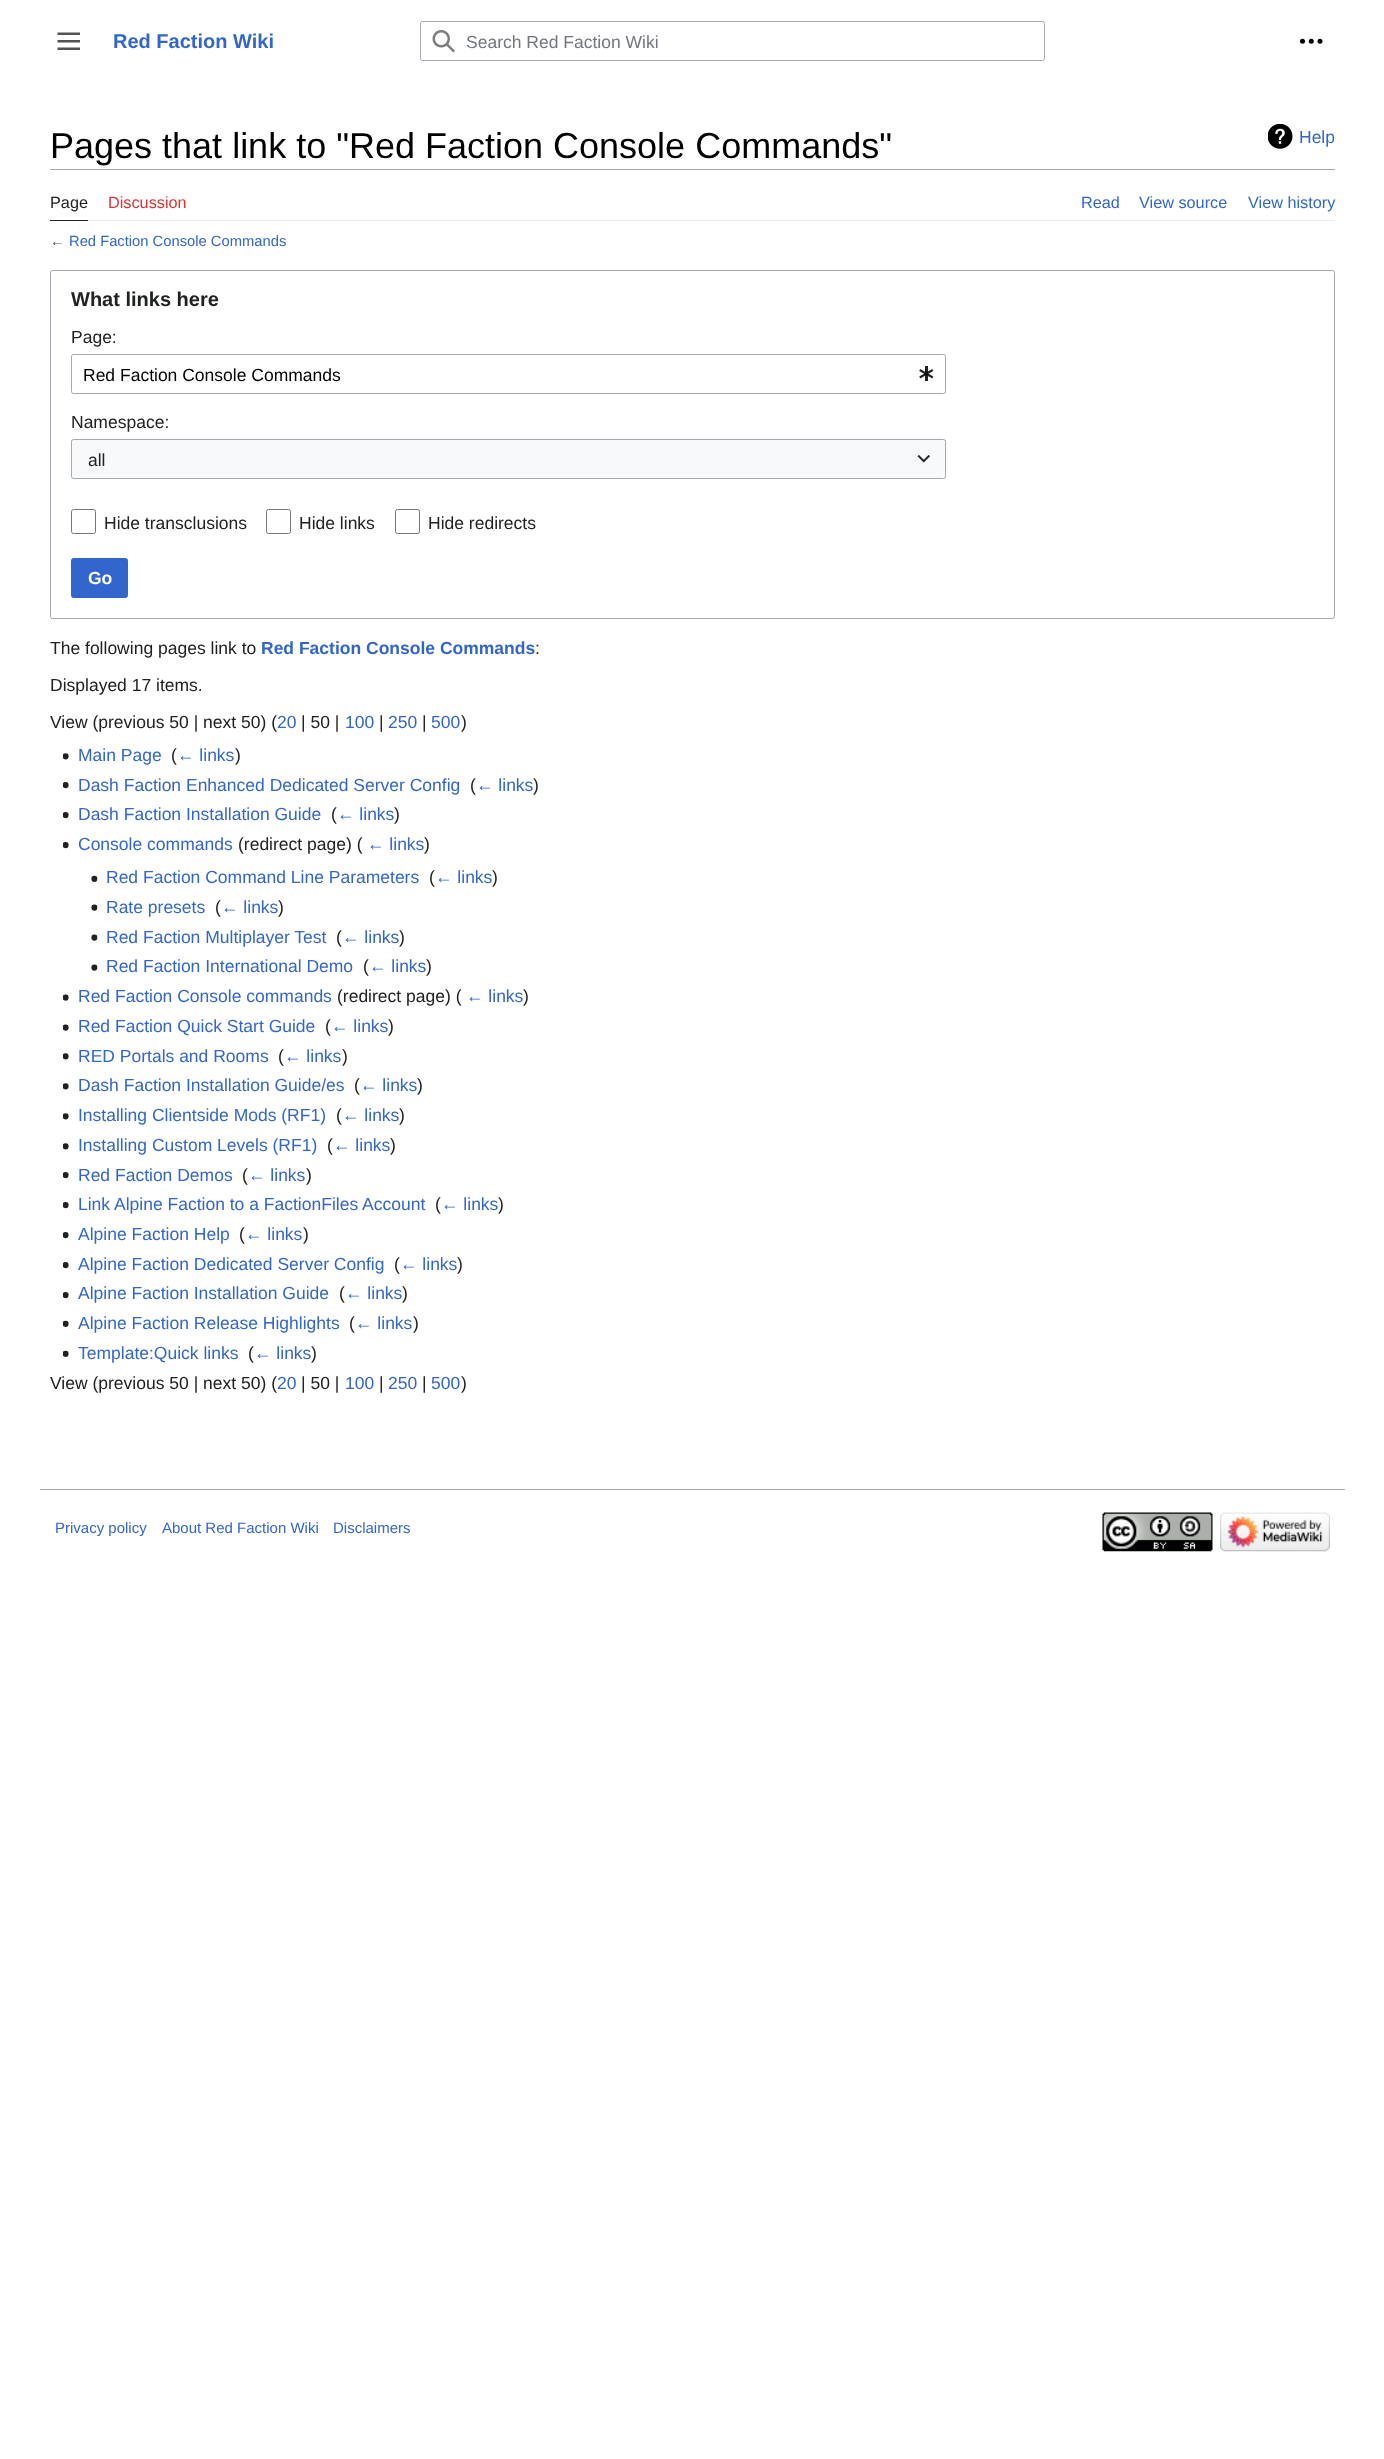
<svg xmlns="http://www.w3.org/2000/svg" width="1384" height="2459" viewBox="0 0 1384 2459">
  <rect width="100%" height="100%" fill="rgb(255,255,255)"/>
  <image x="57" y="32" width="23" height="18" href="pic1.png"/>
  <text x="113" y="48" font-family="Liberation Sans" font-size="20" font-weight="bold" fill="rgb(51,102,204)">Red Faction Wiki</text>
  <rect x="420.5" y="21.5" width="624" height="39" rx="2" fill="none" stroke="rgb(162,169,177)"/>
  <image x="432" y="30" width="23" height="23" href="pic2.png"/>
  <text x="466" y="48" font-family="Liberation Sans" font-size="17.5" fill="rgb(114,119,125)">Search Red Faction Wiki</text>
  <image x="1299" y="38" width="24" height="6" href="pic3.png"/>
  <rect x="50" y="169" width="1285" height="1" fill="rgb(162,169,177)"/>
  <text x="50" y="158" font-family="Liberation Sans" font-size="36" fill="rgb(0,0,0)">Pages that link to "Red Faction Console Commands"</text>
  <image x="1268" y="124" width="25" height="25" href="pic4.png"/>
  <text x="1299" y="143" font-family="Liberation Sans" font-size="17.5" fill="rgb(51,102,204)">Help</text>
  <rect x="88" y="220" width="1247" height="1" fill="rgb(234,236,240)"/>
  <rect x="50" y="220" width="38" height="1" fill="rgb(32,33,34)"/>
  <text x="50" y="208" font-family="Liberation Sans" font-size="16.25" fill="rgb(32,33,34)">Page</text>
  <text x="108" y="208" font-family="Liberation Sans" font-size="16.25" fill="rgb(221,51,51)">Discussion</text>
  <g font-family="Liberation Sans" font-size="16.25" fill="rgb(51,102,204)">
    <text x="1081" y="208">Read</text>
    <text x="1139" y="208">View source</text>
    <text x="1248" y="208">View history</text>
  </g>
  <text x="50" y="246" font-family="Liberation Sans" font-size="14.75" fill="rgb(84,89,93)">←</text>
  <text x="69" y="246" font-family="Liberation Sans" font-size="14.75" fill="rgb(51,102,204)">Red Faction Console Commands</text>
  <rect x="50.5" y="270.5" width="1284" height="348" rx="2" fill="none" stroke="rgb(162,169,177)"/>
  <text x="71" y="306" font-family="Liberation Sans" font-size="20" font-weight="bold" fill="rgb(32,33,34)">What links here</text>
  <text x="71" y="343" font-family="Liberation Sans" font-size="17.5" fill="rgb(32,33,34)">Page:</text>
  <rect x="71.5" y="354.5" width="874" height="39" rx="2" fill="none" stroke="rgb(162,169,177)"/>
  <text x="83" y="381" font-family="Liberation Sans" font-size="17.5" fill="rgb(0,0,0)">Red Faction Console Commands</text>
  <image x="919" y="366" width="15" height="15" href="pic5.png"/>
  <text x="71" y="428" font-family="Liberation Sans" font-size="17.5" fill="rgb(32,33,34)">Namespace:</text>
  <rect x="71" y="439" width="875" height="40" fill="rgb(248,249,250)"/>
  <rect x="71.5" y="439.5" width="874" height="39" rx="2" fill="none" stroke="rgb(162,169,177)"/>
  <text x="88" y="466" font-family="Liberation Sans" font-size="17.5" fill="rgb(32,33,34)">all</text>
  <image x="917" y="455" width="13" height="8" href="pic6.png"/>
  <rect x="71.5" y="509.5" width="24" height="24" rx="2" fill="none" stroke="rgb(114,119,125)"/>
  <text x="104" y="529" font-family="Liberation Sans" font-size="17.5" fill="rgb(32,33,34)">Hide transclusions</text>
  <rect x="266.5" y="509.5" width="24" height="24" rx="2" fill="none" stroke="rgb(114,119,125)"/>
  <text x="299" y="529" font-family="Liberation Sans" font-size="17.5" fill="rgb(32,33,34)">Hide links</text>
  <rect x="395.5" y="509.5" width="24" height="24" rx="2" fill="none" stroke="rgb(114,119,125)"/>
  <text x="428" y="529" font-family="Liberation Sans" font-size="17.5" fill="rgb(32,33,34)">Hide redirects</text>
  <rect x="71.5" y="558.5" width="56" height="39" rx="2" fill="rgb(51,102,204)" stroke="rgb(51,102,204)"/>
  <text x="88" y="584" font-family="Liberation Sans" font-size="17.5" font-weight="bold" fill="rgb(255,255,255)">Go</text>
  <text x="50" y="654" font-family="Liberation Sans" font-size="17.5" fill="rgb(32,33,34)">The following pages link to</text>
  <text x="261" y="654" font-family="Liberation Sans" font-size="17.5" font-weight="bold" fill="rgb(51,102,204)">Red Faction Console Commands</text>
  <g font-family="Liberation Sans" font-size="17.5" fill="rgb(32,33,34)">
    <text x="535" y="654">:</text>
    <text x="50" y="691">Displayed 17 items.</text>
    <text x="50" y="728">View (previous 50 | next 50) (</text>
  </g>
  <text x="277" y="728" font-family="Liberation Sans" font-size="17.5" fill="rgb(51,102,204)">20</text>
  <text x="301" y="728" font-family="Liberation Sans" font-size="17.5" fill="rgb(32,33,34)">| 50 |</text>
  <text x="345" y="728" font-family="Liberation Sans" font-size="17.5" fill="rgb(51,102,204)">100</text>
  <text x="379" y="728" font-family="Liberation Sans" font-size="17.5" fill="rgb(32,33,34)">|</text>
  <text x="388" y="728" font-family="Liberation Sans" font-size="17.5" fill="rgb(51,102,204)">250</text>
  <text x="422" y="728" font-family="Liberation Sans" font-size="17.5" fill="rgb(32,33,34)">|</text>
  <text x="431" y="728" font-family="Liberation Sans" font-size="17.5" fill="rgb(51,102,204)">500</text>
  <text x="461" y="728" font-family="Liberation Sans" font-size="17.5" fill="rgb(32,33,34)">)</text>
  <image x="63" y="753" width="6" height="7" href="pic7.png"/>
  <text x="78" y="761" font-family="Liberation Sans" font-size="17.5" fill="rgb(51,102,204)">Main Page</text>
  <text x="171" y="761" font-family="Liberation Sans" font-size="17.5" fill="rgb(32,33,34)">(</text>
  <text x="177" y="761" font-family="Liberation Sans" font-size="17.5" fill="rgb(51,102,204)">← links</text>
  <text x="235" y="761" font-family="Liberation Sans" font-size="17.5" fill="rgb(32,33,34)">)</text>
  <image x="63" y="782" width="6" height="7" href="pic8.png"/>
  <text x="78" y="791" font-family="Liberation Sans" font-size="17.5" fill="rgb(51,102,204)">Dash Faction Enhanced Dedicated Server Config</text>
  <text x="470" y="791" font-family="Liberation Sans" font-size="17.5" fill="rgb(32,33,34)">(</text>
  <text x="476" y="791" font-family="Liberation Sans" font-size="17.5" fill="rgb(51,102,204)">← links</text>
  <text x="533" y="791" font-family="Liberation Sans" font-size="17.5" fill="rgb(32,33,34)">)</text>
  <image x="63" y="812" width="6" height="7" href="pic8.png"/>
  <text x="78" y="820" font-family="Liberation Sans" font-size="17.5" fill="rgb(51,102,204)">Dash Faction Installation Guide</text>
  <text x="331" y="820" font-family="Liberation Sans" font-size="17.5" fill="rgb(32,33,34)">(</text>
  <text x="337" y="820" font-family="Liberation Sans" font-size="17.5" fill="rgb(51,102,204)">← links</text>
  <text x="394" y="820" font-family="Liberation Sans" font-size="17.5" fill="rgb(32,33,34)">)</text>
  <image x="63" y="842" width="6" height="7" href="pic8.png"/>
  <text x="78" y="850" font-family="Liberation Sans" font-size="17.5" fill="rgb(51,102,204)">Console commands</text>
  <text x="238" y="850" font-family="Liberation Sans" font-size="17.5" fill="rgb(32,33,34)">(redirect page)  (</text>
  <text x="367" y="850" font-family="Liberation Sans" font-size="17.5" fill="rgb(51,102,204)">← links</text>
  <text x="424" y="850" font-family="Liberation Sans" font-size="17.5" fill="rgb(32,33,34)">)</text>
  <image x="91" y="875" width="7" height="7" href="pic9.png"/>
  <text x="106" y="883" font-family="Liberation Sans" font-size="17.5" fill="rgb(51,102,204)">Red Faction Command Line Parameters</text>
  <text x="429" y="883" font-family="Liberation Sans" font-size="17.5" fill="rgb(32,33,34)">(</text>
  <text x="435" y="883" font-family="Liberation Sans" font-size="17.5" fill="rgb(51,102,204)">← links</text>
  <text x="492" y="883" font-family="Liberation Sans" font-size="17.5" fill="rgb(32,33,34)">)</text>
  <image x="91" y="904" width="7" height="7" href="pic10.png"/>
  <text x="106" y="913" font-family="Liberation Sans" font-size="17.5" fill="rgb(51,102,204)">Rate presets</text>
  <text x="215" y="913" font-family="Liberation Sans" font-size="17.5" fill="rgb(32,33,34)">(</text>
  <text x="221" y="913" font-family="Liberation Sans" font-size="17.5" fill="rgb(51,102,204)">← links</text>
  <text x="278" y="913" font-family="Liberation Sans" font-size="17.5" fill="rgb(32,33,34)">)</text>
  <image x="91" y="934" width="7" height="7" href="pic10.png"/>
  <text x="106" y="943" font-family="Liberation Sans" font-size="17.5" fill="rgb(51,102,204)">Red Faction Multiplayer Test</text>
  <text x="336" y="943" font-family="Liberation Sans" font-size="17.5" fill="rgb(32,33,34)">(</text>
  <text x="342" y="943" font-family="Liberation Sans" font-size="17.5" fill="rgb(51,102,204)">← links</text>
  <text x="399" y="943" font-family="Liberation Sans" font-size="17.5" fill="rgb(32,33,34)">)</text>
  <image x="91" y="964" width="7" height="7" href="pic10.png"/>
  <text x="106" y="972" font-family="Liberation Sans" font-size="17.5" fill="rgb(51,102,204)">Red Faction International Demo</text>
  <text x="363" y="972" font-family="Liberation Sans" font-size="17.5" fill="rgb(32,33,34)">(</text>
  <text x="369" y="972" font-family="Liberation Sans" font-size="17.5" fill="rgb(51,102,204)">← links</text>
  <text x="426" y="972" font-family="Liberation Sans" font-size="17.5" fill="rgb(32,33,34)">)</text>
  <image x="63" y="994" width="6" height="7" href="pic11.png"/>
  <text x="78" y="1002" font-family="Liberation Sans" font-size="17.5" fill="rgb(51,102,204)">Red Faction Console commands</text>
  <text x="337" y="1002" font-family="Liberation Sans" font-size="17.5" fill="rgb(32,33,34)">(redirect page)  (</text>
  <text x="466" y="1002" font-family="Liberation Sans" font-size="17.5" fill="rgb(51,102,204)">← links</text>
  <text x="523" y="1002" font-family="Liberation Sans" font-size="17.5" fill="rgb(32,33,34)">)</text>
  <image x="63" y="1024" width="6" height="7" href="pic11.png"/>
  <text x="78" y="1032" font-family="Liberation Sans" font-size="17.5" fill="rgb(51,102,204)">Red Faction Quick Start Guide</text>
  <text x="325" y="1032" font-family="Liberation Sans" font-size="17.5" fill="rgb(32,33,34)">(</text>
  <text x="331" y="1032" font-family="Liberation Sans" font-size="17.5" fill="rgb(51,102,204)">← links</text>
  <text x="388" y="1032" font-family="Liberation Sans" font-size="17.5" fill="rgb(32,33,34)">)</text>
  <image x="63" y="1053" width="6" height="7" href="pic7.png"/>
  <text x="78" y="1062" font-family="Liberation Sans" font-size="17.5" fill="rgb(51,102,204)">RED Portals and Rooms</text>
  <text x="278" y="1062" font-family="Liberation Sans" font-size="17.5" fill="rgb(32,33,34)">(</text>
  <text x="284" y="1062" font-family="Liberation Sans" font-size="17.5" fill="rgb(51,102,204)">← links</text>
  <text x="342" y="1062" font-family="Liberation Sans" font-size="17.5" fill="rgb(32,33,34)">)</text>
  <image x="63" y="1083" width="6" height="7" href="pic7.png"/>
  <text x="78" y="1091" font-family="Liberation Sans" font-size="17.5" fill="rgb(51,102,204)">Dash Faction Installation Guide/es</text>
  <text x="354" y="1091" font-family="Liberation Sans" font-size="17.5" fill="rgb(32,33,34)">(</text>
  <text x="360" y="1091" font-family="Liberation Sans" font-size="17.5" fill="rgb(51,102,204)">← links</text>
  <text x="417" y="1091" font-family="Liberation Sans" font-size="17.5" fill="rgb(32,33,34)">)</text>
  <image x="63" y="1113" width="6" height="7" href="pic7.png"/>
  <text x="78" y="1121" font-family="Liberation Sans" font-size="17.5" fill="rgb(51,102,204)">Installing Clientside Mods (RF1)</text>
  <text x="336" y="1121" font-family="Liberation Sans" font-size="17.5" fill="rgb(32,33,34)">(</text>
  <text x="342" y="1121" font-family="Liberation Sans" font-size="17.5" fill="rgb(51,102,204)">← links</text>
  <text x="399" y="1121" font-family="Liberation Sans" font-size="17.5" fill="rgb(32,33,34)">)</text>
  <image x="63" y="1143" width="6" height="7" href="pic7.png"/>
  <text x="78" y="1151" font-family="Liberation Sans" font-size="17.5" fill="rgb(51,102,204)">Installing Custom Levels (RF1)</text>
  <text x="327" y="1151" font-family="Liberation Sans" font-size="17.5" fill="rgb(32,33,34)">(</text>
  <text x="333" y="1151" font-family="Liberation Sans" font-size="17.5" fill="rgb(51,102,204)">← links</text>
  <text x="390" y="1151" font-family="Liberation Sans" font-size="17.5" fill="rgb(32,33,34)">)</text>
  <image x="63" y="1172" width="6" height="7" href="pic8.png"/>
  <text x="78" y="1181" font-family="Liberation Sans" font-size="17.5" fill="rgb(51,102,204)">Red Faction Demos</text>
  <text x="242" y="1181" font-family="Liberation Sans" font-size="17.5" fill="rgb(32,33,34)">(</text>
  <text x="248" y="1181" font-family="Liberation Sans" font-size="17.5" fill="rgb(51,102,204)">← links</text>
  <text x="306" y="1181" font-family="Liberation Sans" font-size="17.5" fill="rgb(32,33,34)">)</text>
  <image x="63" y="1202" width="6" height="7" href="pic8.png"/>
  <text x="78" y="1210" font-family="Liberation Sans" font-size="17.5" fill="rgb(51,102,204)">Link Alpine Faction to a FactionFiles Account</text>
  <text x="435" y="1210" font-family="Liberation Sans" font-size="17.5" fill="rgb(32,33,34)">(</text>
  <text x="441" y="1210" font-family="Liberation Sans" font-size="17.5" fill="rgb(51,102,204)">← links</text>
  <text x="498" y="1210" font-family="Liberation Sans" font-size="17.5" fill="rgb(32,33,34)">)</text>
  <image x="63" y="1232" width="6" height="7" href="pic8.png"/>
  <text x="78" y="1240" font-family="Liberation Sans" font-size="17.5" fill="rgb(51,102,204)">Alpine Faction Help</text>
  <text x="239" y="1240" font-family="Liberation Sans" font-size="17.5" fill="rgb(32,33,34)">(</text>
  <text x="245" y="1240" font-family="Liberation Sans" font-size="17.5" fill="rgb(51,102,204)">← links</text>
  <text x="303" y="1240" font-family="Liberation Sans" font-size="17.5" fill="rgb(32,33,34)">)</text>
  <image x="63" y="1262" width="6" height="7" href="pic8.png"/>
  <text x="78" y="1270" font-family="Liberation Sans" font-size="17.5" fill="rgb(51,102,204)">Alpine Faction Dedicated Server Config</text>
  <text x="394" y="1270" font-family="Liberation Sans" font-size="17.5" fill="rgb(32,33,34)">(</text>
  <text x="400" y="1270" font-family="Liberation Sans" font-size="17.5" fill="rgb(51,102,204)">← links</text>
  <text x="457" y="1270" font-family="Liberation Sans" font-size="17.5" fill="rgb(32,33,34)">)</text>
  <image x="63" y="1292" width="6" height="7" href="pic8.png"/>
  <text x="78" y="1299" font-family="Liberation Sans" font-size="17.5" fill="rgb(51,102,204)">Alpine Faction Installation Guide</text>
  <text x="339" y="1299" font-family="Liberation Sans" font-size="17.5" fill="rgb(32,33,34)">(</text>
  <text x="345" y="1299" font-family="Liberation Sans" font-size="17.5" fill="rgb(51,102,204)">← links</text>
  <text x="402" y="1299" font-family="Liberation Sans" font-size="17.5" fill="rgb(32,33,34)">)</text>
  <image x="63" y="1320" width="6" height="7" href="pic12.png"/>
  <text x="78" y="1329" font-family="Liberation Sans" font-size="17.5" fill="rgb(51,102,204)">Alpine Faction Release Highlights</text>
  <text x="349" y="1329" font-family="Liberation Sans" font-size="17.5" fill="rgb(32,33,34)">(</text>
  <text x="355" y="1329" font-family="Liberation Sans" font-size="17.5" fill="rgb(51,102,204)">← links</text>
  <text x="413" y="1329" font-family="Liberation Sans" font-size="17.5" fill="rgb(32,33,34)">)</text>
  <image x="63" y="1350" width="6" height="7" href="pic12.png"/>
  <text x="78" y="1359" font-family="Liberation Sans" font-size="17.5" fill="rgb(51,102,204)">Template:Quick links</text>
  <text x="248" y="1359" font-family="Liberation Sans" font-size="17.5" fill="rgb(32,33,34)">(</text>
  <text x="254" y="1359" font-family="Liberation Sans" font-size="17.5" fill="rgb(51,102,204)">← links</text>
  <g font-family="Liberation Sans" font-size="17.5" fill="rgb(32,33,34)">
    <text x="311" y="1359">)</text>
    <text x="50" y="1389">View (previous 50 | next 50) (</text>
  </g>
  <text x="277" y="1389" font-family="Liberation Sans" font-size="17.5" fill="rgb(51,102,204)">20</text>
  <text x="301" y="1389" font-family="Liberation Sans" font-size="17.5" fill="rgb(32,33,34)">| 50 |</text>
  <text x="345" y="1389" font-family="Liberation Sans" font-size="17.5" fill="rgb(51,102,204)">100</text>
  <text x="379" y="1389" font-family="Liberation Sans" font-size="17.5" fill="rgb(32,33,34)">|</text>
  <text x="388" y="1389" font-family="Liberation Sans" font-size="17.5" fill="rgb(51,102,204)">250</text>
  <text x="422" y="1389" font-family="Liberation Sans" font-size="17.5" fill="rgb(32,33,34)">|</text>
  <text x="431" y="1389" font-family="Liberation Sans" font-size="17.5" fill="rgb(51,102,204)">500</text>
  <text x="461" y="1389" font-family="Liberation Sans" font-size="17.5" fill="rgb(32,33,34)">)</text>
  <rect x="40" y="1489" width="1305" height="1" fill="rgb(162,169,177)"/>
  <g font-family="Liberation Sans" font-size="15" fill="rgb(51,102,204)">
    <text x="55" y="1533">Privacy policy</text>
    <text x="162" y="1533">About Red Faction Wiki</text>
    <text x="333" y="1533">Disclaimers</text>
  </g>
  <image x="1102" y="1512" width="111" height="40" href="pic13.png"/>
  <image x="1220" y="1512" width="110" height="40" href="pic14.png"/>
</svg>
